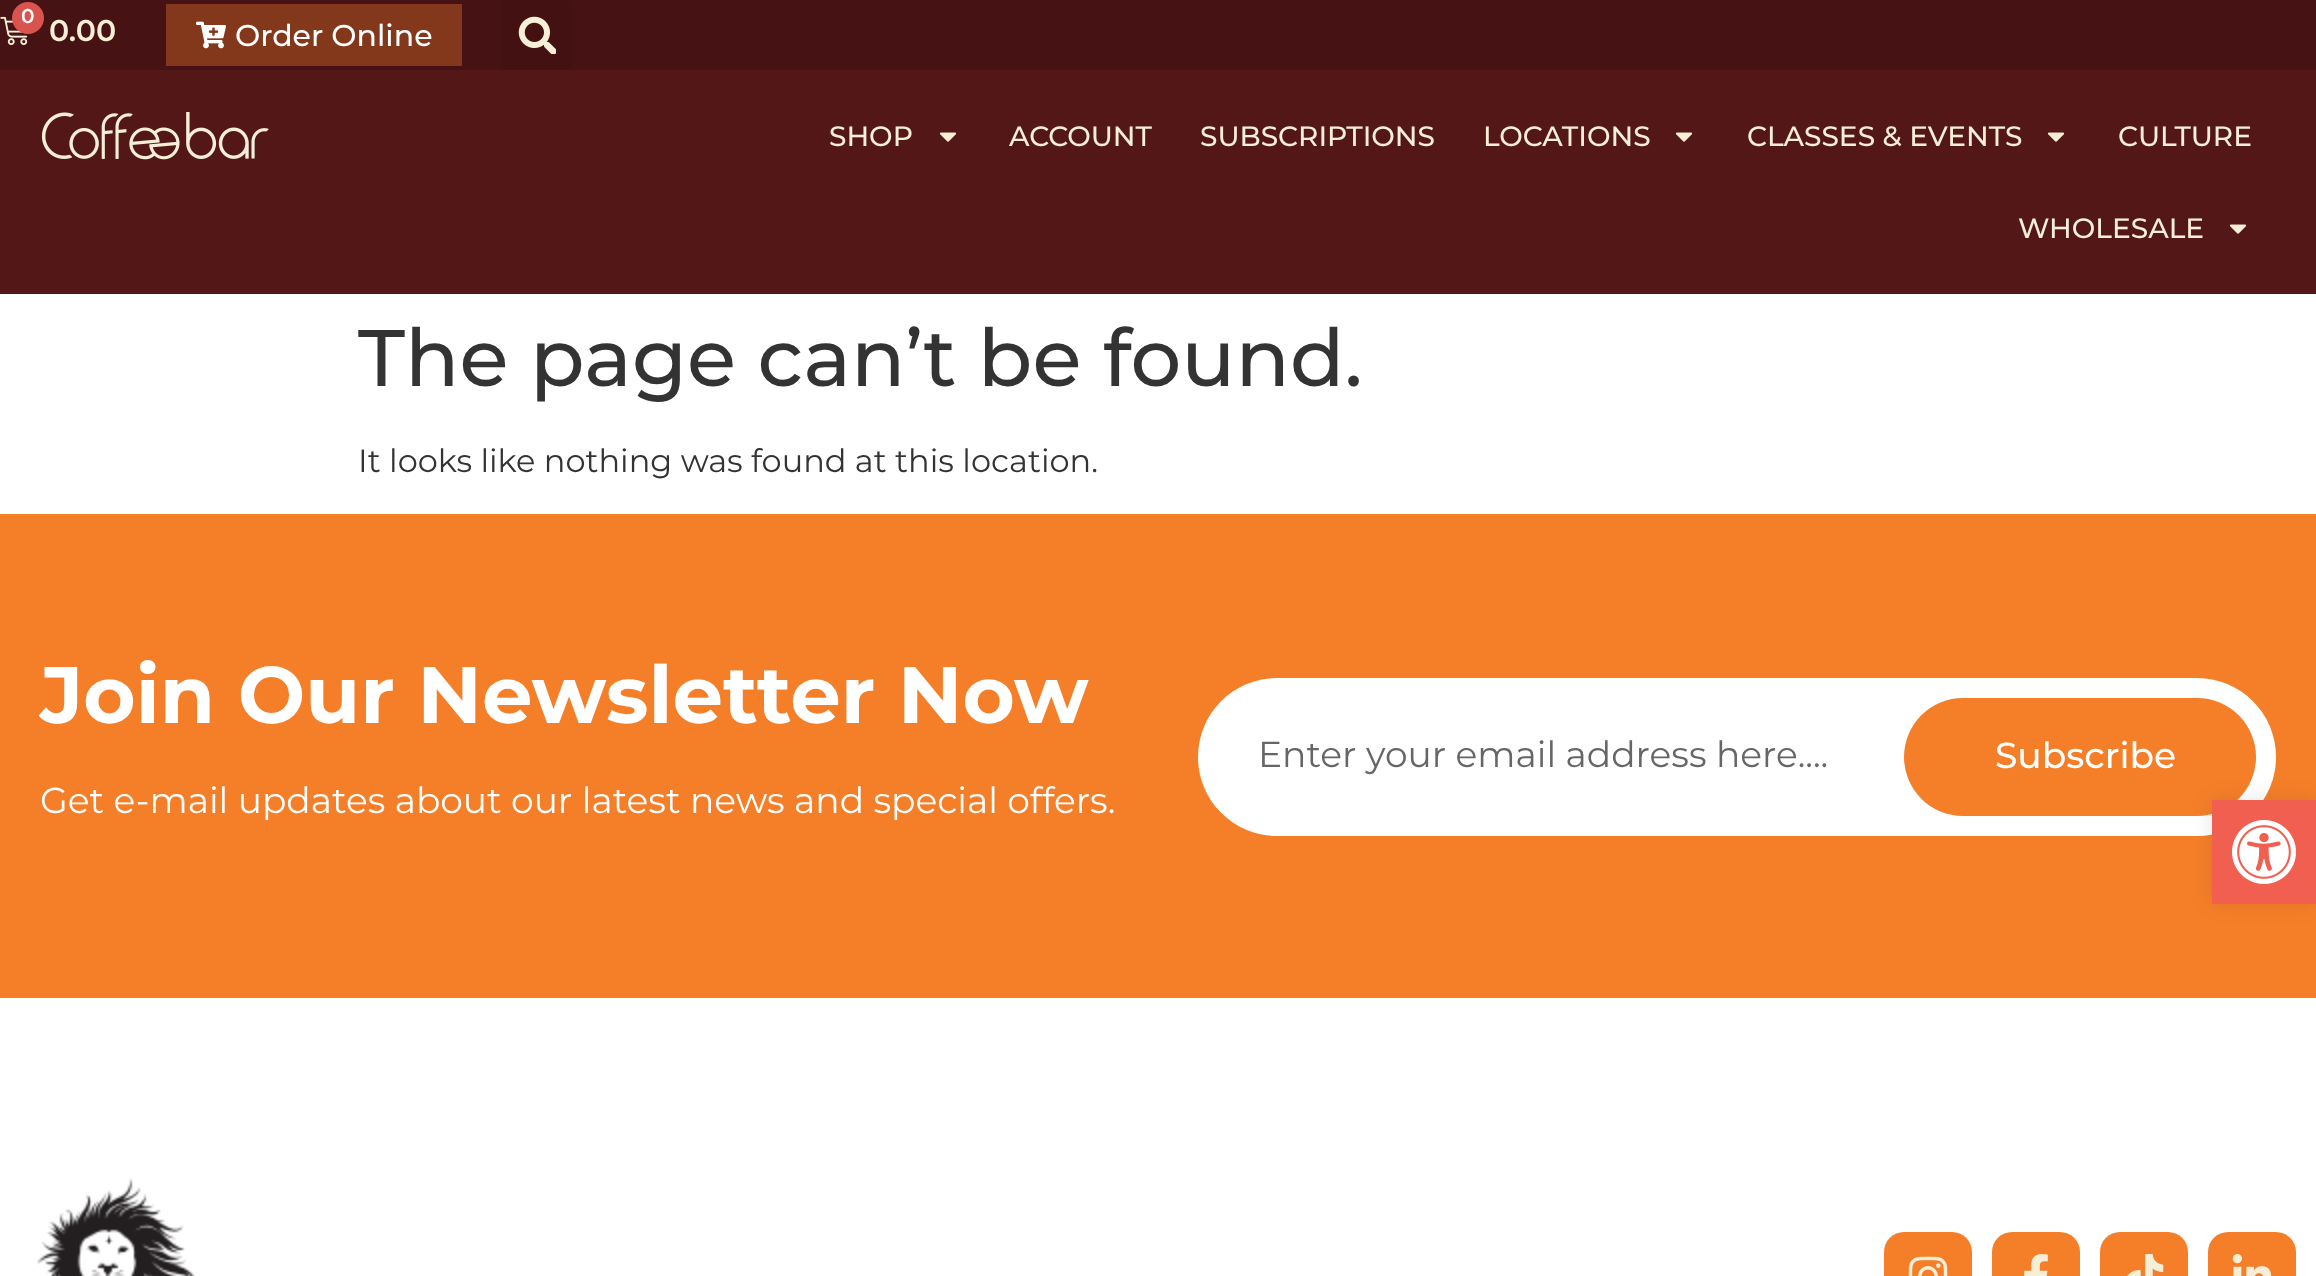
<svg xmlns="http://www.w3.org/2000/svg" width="2316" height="1276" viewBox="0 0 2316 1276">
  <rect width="100%" height="100%" fill="rgb(255,255,255)"/>
  <rect x="0" y="0" width="2316" height="70" fill="rgb(70,18,19)"/>
  <image x="0" y="16" width="28" height="30" href="pic1.png"/>
  <circle cx="28" cy="18" r="16" fill="rgb(217,83,79)"/>
  <text x="21" y="23" font-family="Montserrat" font-size="20" font-weight="600" fill="rgb(255,255,255)">0</text>
  <text x="49" y="41" font-family="Montserrat" font-size="30" font-weight="600" fill="rgb(246,238,215)">0.00</text>
  <rect x="166" y="4" width="296" height="62" fill="rgb(131,56,27)"/>
  <image x="196" y="21" width="30" height="28" href="pic2.png"/>
  <text x="235" y="46" font-family="Montserrat" font-size="30" font-weight="500" fill="rgb(255,255,255)">Order Online</text>
  <rect x="502" y="0" width="70" height="70" rx="6" fill="rgb(67,17,18)"/>
  <image x="518" y="16" width="38" height="38" href="pic3.png"/>
  <rect x="0" y="70" width="2316" height="224" fill="rgb(83,23,24)"/>
  <image x="41" y="112" width="92" height="47" href="pic4.png"/>
  <image x="129" y="127" width="51" height="33" href="pic5.png"/>
  <image x="186" y="112" width="83" height="47" href="pic6.png"/>
  <text x="829" y="146" font-family="Montserrat" font-size="28" font-weight="500" fill="rgb(246,238,215)">SHOP</text>
  <image x="939" y="132" width="18" height="10" href="pic7.png"/>
  <g font-family="Montserrat" font-size="28" font-weight="500" fill="rgb(246,238,215)">
    <text x="1009" y="146">ACCOUNT</text>
    <text x="1200" y="146">SUBSCRIPTIONS</text>
    <text x="1483" y="146">LOCATIONS</text>
  </g>
  <image x="1675" y="132" width="18" height="10" href="pic7.png"/>
  <text x="1747" y="146" font-family="Montserrat" font-size="28" font-weight="500" fill="rgb(246,238,215)">CLASSES &amp; EVENTS</text>
  <image x="2047" y="132" width="18" height="10" href="pic7.png"/>
  <g font-family="Montserrat" font-size="28" font-weight="500" fill="rgb(246,238,215)">
    <text x="2118" y="146">CULTURE</text>
    <text x="2018" y="238">WHOLESALE</text>
  </g>
  <image x="2229" y="224" width="18" height="10" href="pic7.png"/>
  <text x="358" y="386" font-family="Montserrat" font-size="80" font-weight="500" fill="rgb(51,51,51)">The page can’t be found.</text>
  <text x="358" y="472" font-family="Montserrat" font-size="32" fill="rgb(51,51,51)">It looks like nothing was found at this location.</text>
  <rect x="0" y="514" width="2316" height="484" fill="rgb(245,127,41)"/>
  <text x="40" y="723" font-family="Montserrat" font-size="80" font-weight="bold" fill="rgb(255,255,255)">Join Our Newsletter Now</text>
  <text x="40" y="813" font-family="Montserrat" font-size="36" fill="rgb(255,255,255)">Get e-mail updates about our latest news and special offers.</text>
  <rect x="1198" y="678" width="1078" height="158" rx="79" fill="rgb(255,255,255)"/>
  <text x="1258" y="767" font-family="Montserrat" font-size="36" fill="rgb(102,102,102)">Enter your email address here....</text>
  <rect x="1904" y="698" width="352" height="118" rx="59" fill="rgb(245,127,41)"/>
  <text x="1995" y="768" font-family="Montserrat" font-size="36" font-weight="500" fill="rgb(255,255,255)">Subscribe</text>
  <image x="37" y="1178" width="158" height="98" href="pic8.png"/>
  <rect x="1884" y="1232" width="88" height="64" rx="20" fill="rgb(245,127,41)"/>
  <image x="1908" y="1256" width="40" height="20" href="pic9.png"/>
  <rect x="1992" y="1232" width="88" height="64" rx="20" fill="rgb(245,127,41)"/>
  <image x="2024" y="1254" width="24" height="22" href="pic10.png"/>
  <rect x="2100" y="1232" width="88" height="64" rx="20" fill="rgb(245,127,41)"/>
  <image x="2127" y="1254" width="37" height="22" href="pic11.png"/>
  <rect x="2208" y="1232" width="88" height="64" rx="20" fill="rgb(245,127,41)"/>
  <image x="2232" y="1254" width="40" height="22" href="pic12.png"/>
  <rect x="2212" y="800" width="104" height="104" fill="rgba(0,0,0,0.1)" filter="blur(10px)"/>
  <rect x="2212" y="800" width="104" height="104" fill="rgb(241,95,81)"/>
  <image x="2232" y="820" width="64" height="64" href="pic13.png"/>
</svg>
